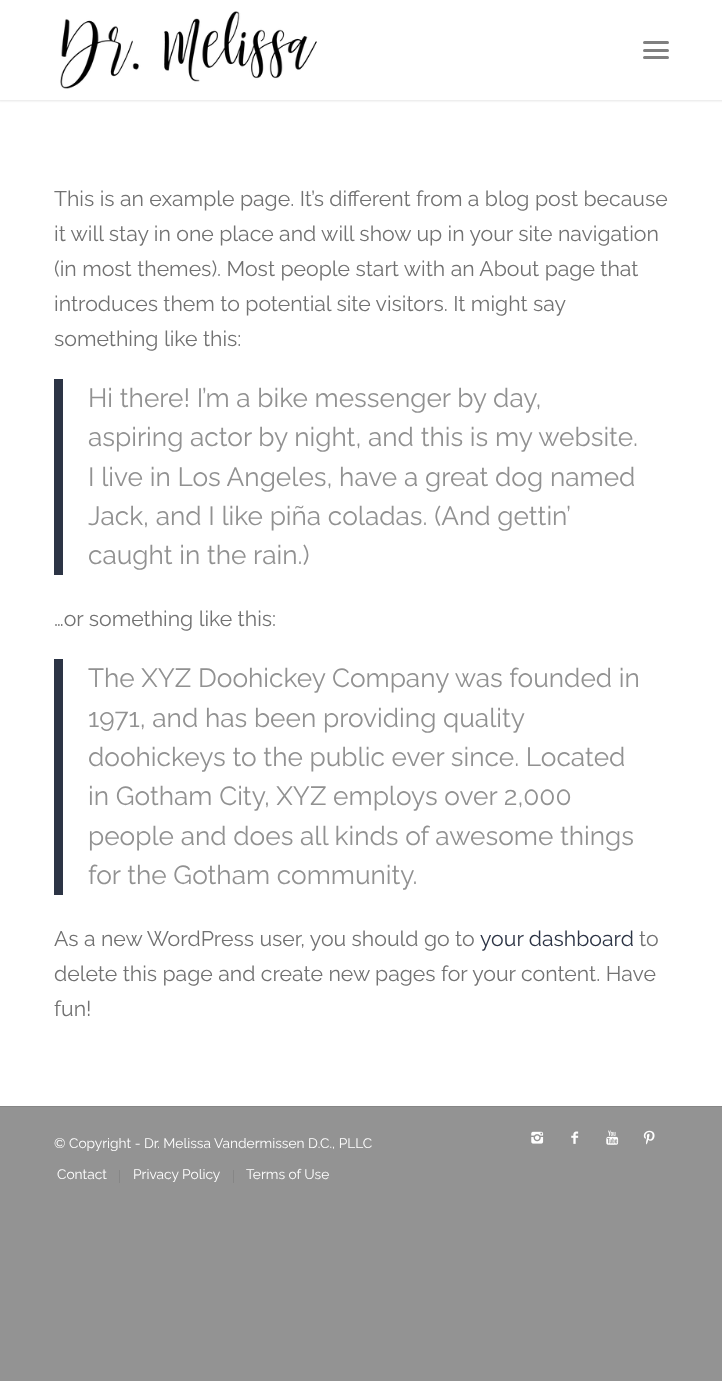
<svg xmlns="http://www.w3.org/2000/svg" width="722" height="1381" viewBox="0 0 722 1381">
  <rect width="100%" height="100%" fill="rgb(147,147,147)"/>
  <rect x="0" y="100" width="722" height="1006" fill="rgb(255,255,255)"/>
  <rect x="-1" y="-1" width="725" height="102" fill="rgba(0,0,0,0.1)" filter="blur(1px)"/>
  <rect x="0" y="0" width="722" height="100" fill="rgb(255,255,255)"/>
  <image x="60" y="11" width="257" height="78" href="pic1.png"/>
  <rect x="643" y="49" width="26" height="3" rx="1.5" fill="rgb(128,128,128)"/>
  <rect x="643" y="41" width="26" height="3" rx="1.5" fill="rgb(128,128,128)"/>
  <rect x="643" y="56" width="26" height="3" rx="1.5" fill="rgb(128,128,128)"/>
  <g font-family="Raleway" font-size="21.25" font-weight="100" fill="rgb(114,114,114)">
    <text>
      <tspan x="54" y="206">This is an example page. It’s different from a blog post because</tspan>
      <tspan x="54" y="241">it will stay in one place and will show up in your site navigation</tspan>
      <tspan x="54" y="276">(in most themes). Most people start with an About page that</tspan>
      <tspan x="54" y="311">introduces them to potential site visitors. It might say</tspan>
      <tspan x="54" y="346">something like this:</tspan>
    </text>
  </g>
  <rect x="54" y="379" width="9" height="196" fill="rgb(44,52,69)"/>
  <g font-family="Raleway" font-size="26.25" font-weight="100" fill="rgb(145,145,145)">
    <text>
      <tspan x="88" y="407">Hi there! I’m a bike messenger by day,</tspan>
      <tspan x="88" y="446">aspiring actor by night, and this is my website.</tspan>
      <tspan x="88" y="486">I live in Los Angeles, have a great dog named</tspan>
      <tspan x="88" y="525">Jack, and I like piña coladas. (And gettin’</tspan>
      <tspan x="88" y="564">caught in the rain.)</tspan>
    </text>
  </g>
  <text x="54" y="626" font-family="Raleway" font-size="21.25" font-weight="100" fill="rgb(114,114,114)">…or something like this:</text>
  <rect x="54" y="659" width="9" height="236" fill="rgb(44,52,69)"/>
  <g font-family="Raleway" font-size="26.25" font-weight="100" fill="rgb(145,145,145)">
    <text>
      <tspan x="88" y="687">The XYZ Doohickey Company was founded in</tspan>
      <tspan x="88" y="727">1971, and has been providing quality</tspan>
      <tspan x="88" y="766">doohickeys to the public ever since. Located</tspan>
      <tspan x="88" y="805">in Gotham City, XYZ employs over 2,000</tspan>
      <tspan x="88" y="845">people and does all kinds of awesome things</tspan>
      <tspan x="88" y="884">for the Gotham community.</tspan>
    </text>
  </g>
  <text x="54" y="946" font-family="Raleway" font-size="21.25" font-weight="100" fill="rgb(114,114,114)">As a new WordPress user, you should go to</text>
  <text x="480" y="946" font-family="Raleway" font-size="21.25" font-weight="100" fill="rgb(44,52,69)">your dashboard</text>
  <g font-family="Raleway" font-size="21.25" font-weight="100" fill="rgb(114,114,114)">
    <text x="639" y="946">to</text>
    <text>
      <tspan x="54" y="981">delete this page and create new pages for your content. Have</tspan>
      <tspan x="54" y="1016">fun!</tspan>
    </text>
  </g>
  <rect x="0" y="1106" width="722" height="1" fill="rgb(134,134,134)"/>
  <text x="54" y="1148" font-family="Raleway" font-size="13.75" font-weight="100" fill="rgb(255,255,255)">© Copyright - Dr. Melissa Vandermissen D.C., PLLC</text>
  <image x="531" y="1131" width="13" height="13" href="pic2.png"/>
  <image x="571" y="1131" width="8" height="13" href="pic3.png"/>
  <image x="606" y="1130" width="13" height="15" href="pic4.png"/>
  <image x="643" y="1130" width="12" height="15" href="pic5.png"/>
  <text x="57" y="1179" font-family="Raleway" font-size="13.75" font-weight="100" fill="rgb(255,255,255)">Contact</text>
  <rect x="119" y="1170" width="1" height="13" fill="rgb(134,134,134)"/>
  <text x="133" y="1179" font-family="Raleway" font-size="13.75" font-weight="100" fill="rgb(255,255,255)">Privacy Policy</text>
  <rect x="233" y="1170" width="1" height="13" fill="rgb(134,134,134)"/>
  <text x="246" y="1179" font-family="Raleway" font-size="13.75" font-weight="100" fill="rgb(255,255,255)">Terms of Use</text>
</svg>
